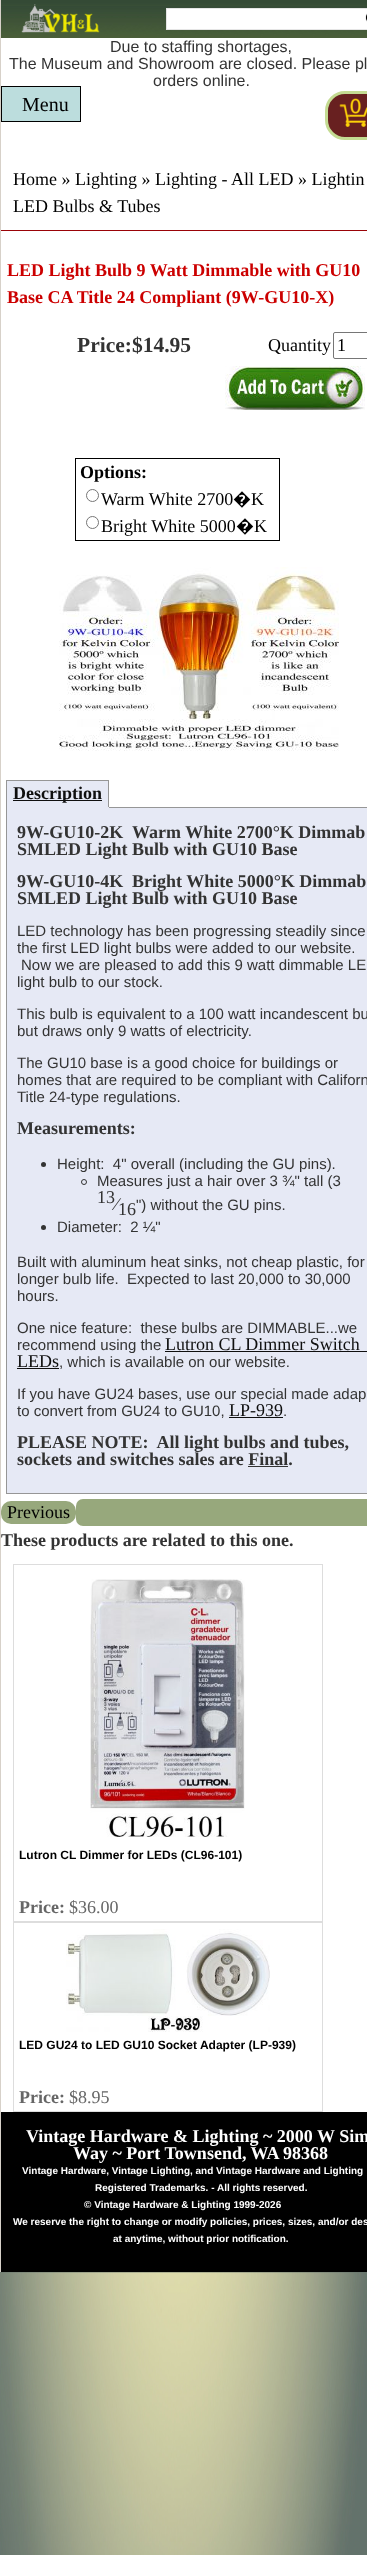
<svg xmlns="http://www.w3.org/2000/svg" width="367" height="2555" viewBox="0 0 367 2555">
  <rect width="100%" height="100%" fill="rgb(255,255,255)"/>
  <image x="0" y="2272" width="367" height="283" href="pic1.png"/>
  <rect x="0" y="0" width="1" height="2272" fill="rgb(215,209,201)"/>
  <image x="1" y="0" width="366" height="6" href="pic2.png"/>
  <image x="1" y="6" width="366" height="32" href="pic3.png"/>
  <image x="21" y="4" width="79" height="29" href="pic4.png"/>
  <rect x="166.5" y="8.5" width="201" height="21" fill="rgb(255,255,255)" stroke="rgb(229,229,229)"/>
  <image x="365" y="13" width="2" height="9" href="pic5.png"/>
  <g font-family="Liberation Sans" font-size="16" fill="rgb(51,51,51)">
    <text x="110" y="52">Due to staffing shortages,</text>
    <text x="9" y="69">The Museum and Showroom are closed. Please pl</text>
    <text x="153" y="86">orders online.</text>
  </g>
  <rect x="1.5" y="86.5" width="79" height="35" fill="rgb(188,221,221)" stroke="rgb(0,0,0)"/>
  <text x="22" y="111" font-family="Liberation Serif" font-size="20" fill="rgb(0,0,0)">Menu</text>
  <rect x="326.5" y="92.5" width="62" height="46" rx="18.5" fill="rgb(104,32,32)" stroke="rgb(196,219,146)" stroke-width="3"/>
  <image x="339" y="104" width="11" height="23" href="pic6.png"/>
  <image x="350" y="98" width="11" height="25" href="pic7.png"/>
  <image x="361" y="107" width="6" height="20" href="pic8.png"/>
  <rect x="1" y="230" width="366" height="1" fill="rgb(154,3,8)"/>
  <g font-family="Liberation Serif" font-size="18" fill="rgb(0,0,0)">
    <text>
      <tspan x="13" y="185">Home » Lighting » Lighting - All LED » Lightin</tspan>
      <tspan x="13" y="212">LED Bulbs &amp; Tubes</tspan>
    </text>
  </g>
  <g font-family="Liberation Serif" font-size="18" font-weight="bold" fill="rgb(204,0,0)">
    <text>
      <tspan x="7" y="276">LED Light Bulb 9 Watt Dimmable with GU10</tspan>
      <tspan x="7" y="303">Base CA Title 24 Compliant (9W-GU10-X)</tspan>
    </text>
  </g>
  <text x="77" y="352" font-family="Liberation Serif" font-size="21.5" font-weight="bold" fill="rgb(51,51,51)">Price:$14.95</text>
  <text x="268" y="351" font-family="Liberation Serif" font-size="18" fill="rgb(0,0,0)">Quantity</text>
  <rect x="333.5" y="332.5" width="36" height="26" rx="1.5" fill="none" stroke="rgb(118,118,118)"/>
  <text x="337" y="351" font-family="Liberation Serif" font-size="18" fill="rgb(0,0,0)">1</text>
  <image x="225" y="366" width="140" height="44" href="pic9.png"/>
  <rect x="75.5" y="458.5" width="204" height="82" fill="none" stroke="rgb(0,0,0)"/>
  <text x="80" y="478" font-family="Liberation Serif" font-size="18" font-weight="bold" fill="rgb(0,0,0)">Options:</text>
  <circle cx="92.5" cy="495.5" r="6" fill="none" stroke="rgb(118,118,118)"/>
  <text x="101" y="505" font-family="Liberation Serif" font-size="18" fill="rgb(0,0,0)">Warm White 2700</text>
  <text x="233" y="505" font-family="Noto Sans" font-size="18" fill="rgb(0,0,0)">�</text>
  <text x="251" y="505" font-family="Liberation Serif" font-size="18" fill="rgb(0,0,0)">K</text>
  <circle cx="92.5" cy="522.5" r="6" fill="none" stroke="rgb(118,118,118)"/>
  <text x="101" y="532" font-family="Liberation Serif" font-size="18" fill="rgb(0,0,0)">Bright White 5000</text>
  <text x="236" y="532" font-family="Noto Sans" font-size="18" fill="rgb(0,0,0)">�</text>
  <text x="254" y="532" font-family="Liberation Serif" font-size="18" fill="rgb(0,0,0)">K</text>
  <image x="59" y="567" width="280" height="184" href="pic10.png"/>
  <rect x="7" y="781" width="101" height="26" fill="rgb(230,233,245)"/>
  <rect x="6" y="780" width="103" height="1" fill="rgb(150,150,150)"/>
  <rect x="6.5" y="807.5" width="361" height="686" fill="rgb(230,233,245)" stroke="rgb(150,150,150)"/>
  <rect x="108" y="780" width="1" height="28" fill="rgb(150,150,150)"/>
  <rect x="6" y="807" width="103" height="1" fill="rgb(230,233,245)"/>
  <rect x="6" y="780" width="1" height="28" fill="rgb(150,150,150)"/>
  <rect x="13" y="800" width="89" height="1" fill="rgb(15,15,15)"/>
  <text x="13" y="799" font-family="Liberation Serif" font-size="18" font-weight="bold" fill="rgb(15,15,15)">Description</text>
  <g font-family="Liberation Serif" font-size="18" font-weight="bold" fill="rgb(51,51,51)">
    <text x="17" y="838">9W-GU10-2K</text>
    <text x="132" y="838">Warm White 2700°K Dimmab</text>
    <text>
      <tspan x="17" y="855">SMLED Light Bulb with GU10 Base</tspan>
      <tspan x="17" y="887">9W-GU10-4K</tspan>
    </text>
    <text x="132" y="887">Bright White 5000°K Dimmab</text>
    <text x="17" y="904">SMLED Light Bulb with GU10 Base</text>
  </g>
  <g font-family="Liberation Sans" font-size="15" fill="rgb(51,51,51)">
    <text>
      <tspan x="17" y="936">LED technology has been progressing steadily since</tspan>
      <tspan x="17" y="953">the first LED light bulbs were added to our website.</tspan>
    </text>
    <text x="21" y="970">Now we are pleased to add this 9 watt dimmable LE</text>
    <text x="17" y="987">light bulb to our stock.</text>
    <text>
      <tspan x="17" y="1019">This bulb is equivalent to a 100 watt incandescent bu</tspan>
      <tspan x="17" y="1036">but draws only 9 watts of electricity.</tspan>
    </text>
    <text>
      <tspan x="17" y="1068">The GU10 base is a good choice for buildings or</tspan>
      <tspan x="17" y="1085">homes that are required to be compliant with Californ</tspan>
      <tspan x="17" y="1102">Title 24-type regulations.</tspan>
    </text>
  </g>
  <text x="17" y="1134" font-family="Liberation Serif" font-size="18" font-weight="bold" fill="rgb(51,51,51)">Measurements:</text>
  <circle cx="43.5" cy="1164.5" r="2.5" fill="rgb(51,51,51)"/>
  <text x="57" y="1169" font-family="Liberation Sans" font-size="15" fill="rgb(51,51,51)" xml:space="preserve">Height:  4" overall (including the GU pins).</text>
  <circle cx="84" cy="1182" r="2.5" fill="none" stroke="rgb(51,51,51)"/>
  <text x="97" y="1186" font-family="Liberation Sans" font-size="15" fill="rgb(51,51,51)">Measures just a hair over 3 ¾" tall (3</text>
  <g font-family="Liberation Serif" font-size="18" fill="rgb(51,51,51)">
    <text x="97" y="1203">13</text>
    <text x="115" y="1210">⁄</text>
    <text x="118" y="1215">16</text>
  </g>
  <text x="136" y="1210" font-family="Liberation Sans" font-size="15" fill="rgb(51,51,51)">") without the GU pins.</text>
  <circle cx="43.5" cy="1227.5" r="2.5" fill="rgb(51,51,51)"/>
  <g font-family="Liberation Sans" font-size="15" fill="rgb(51,51,51)">
    <text x="57" y="1232" xml:space="preserve">Diameter:  2 ¼"</text>
    <text xml:space="preserve"><tspan x="17" y="1267">Built with aluminum heat sinks, not cheap plastic, for</tspan><tspan x="17" y="1284">longer bulb life.  Expected to last 20,000 to 30,000</tspan><tspan x="17" y="1301">hours.</tspan></text>
    <text xml:space="preserve"><tspan x="17" y="1333">One nice feature:  these bulbs are DIMMABLE...we</tspan><tspan x="17" y="1350">recommend using the</tspan></text>
  </g>
  <text x="165" y="1350" font-family="Liberation Serif" font-size="18" fill="rgb(15,15,15)">Lutron CL Dimmer Switch</text>
  <rect x="165" y="1351" width="202" height="1" fill="rgb(15,15,15)"/>
  <text x="17" y="1367" font-family="Liberation Serif" font-size="18" fill="rgb(15,15,15)">LEDs</text>
  <rect x="17" y="1368" width="42" height="1" fill="rgb(15,15,15)"/>
  <g font-family="Liberation Sans" font-size="15" fill="rgb(51,51,51)">
    <text x="59" y="1367">, which is available on our website.</text>
    <text>
      <tspan x="17" y="1399">If you have GU24 bases, use our special made adap</tspan>
      <tspan x="17" y="1416">to convert from GU24 to GU10,</tspan>
    </text>
  </g>
  <text x="229" y="1416" font-family="Liberation Serif" font-size="18" fill="rgb(15,15,15)">LP-939</text>
  <rect x="229" y="1417" width="54" height="1" fill="rgb(15,15,15)"/>
  <text x="283" y="1416" font-family="Liberation Sans" font-size="15" fill="rgb(51,51,51)">.</text>
  <g font-family="Liberation Serif" font-size="18" font-weight="bold" fill="rgb(51,51,51)">
    <text xml:space="preserve"><tspan x="17" y="1448">PLEASE NOTE:  All light bulbs and tubes,</tspan><tspan x="17" y="1465">sockets and switches sales are Final.</tspan></text>
  </g>
  <rect x="248" y="1466" width="40" height="1" fill="rgb(51,51,51)"/>
  <rect x="1" y="1501" width="75" height="23" rx="10" fill="rgb(151,168,124)"/>
  <text x="7" y="1518" font-family="Liberation Serif" font-size="18" fill="rgb(0,0,0)">Previous</text>
  <rect x="76" y="1499" width="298" height="27" rx="7" fill="rgb(151,168,124)"/>
  <text x="1" y="1546" font-family="Liberation Serif" font-size="18" font-weight="bold" fill="rgb(51,51,51)">These products are related to this one.</text>
  <rect x="13.5" y="1564.5" width="309" height="357" fill="none" stroke="rgb(221,221,221)"/>
  <image x="90" y="1579" width="155" height="258" href="pic11.png"/>
  <text x="19" y="1859" font-family="Liberation Sans" font-size="12" font-weight="bold" fill="rgb(0,0,0)">Lutron CL Dimmer for LEDs (CL96-101)</text>
  <text x="19" y="1913" font-family="Liberation Serif" font-size="18" font-weight="bold" fill="rgb(102,102,102)">Price:</text>
  <text x="69" y="1913" font-family="Liberation Serif" font-size="18" fill="rgb(102,102,102)">$36.00</text>
  <rect x="13.5" y="1922.5" width="309" height="189" fill="none" stroke="rgb(221,221,221)"/>
  <image x="66" y="1929" width="204" height="103" href="pic12.png"/>
  <text x="19" y="2049" font-family="Liberation Sans" font-size="12" font-weight="bold" fill="rgb(0,0,0)">LED GU24 to LED GU10 Socket Adapter (LP-939)</text>
  <text x="19" y="2103" font-family="Liberation Serif" font-size="18" font-weight="bold" fill="rgb(102,102,102)">Price:</text>
  <text x="69" y="2103" font-family="Liberation Serif" font-size="18" fill="rgb(102,102,102)">$8.95</text>
  <rect x="1" y="2112" width="366" height="160" fill="rgb(0,0,0)"/>
  <g font-family="Liberation Serif" font-size="18" font-weight="bold" fill="rgb(255,255,255)">
    <text x="26" y="2142">Vintage Hardware &amp; Lighting ~ 2000 W Sim</text>
    <text x="73" y="2159">Way ~ Port Townsend, WA 98368</text>
  </g>
  <g font-family="Liberation Sans" font-size="10" font-weight="bold" fill="rgb(255,255,255)">
    <text x="22" y="2174">Vintage Hardware, Vintage Lighting, and Vintage Hardware and Lighting</text>
    <text x="95" y="2191">Registered Trademarks. - All rights reserved.</text>
    <text x="84" y="2208">© Vintage Hardware &amp; Lighting 1999-2026</text>
    <text x="13" y="2225">We reserve the right to change or modify policies, prices, sizes, and/or des</text>
    <text x="113" y="2242">at anytime, without prior notification.</text>
  </g>
</svg>
